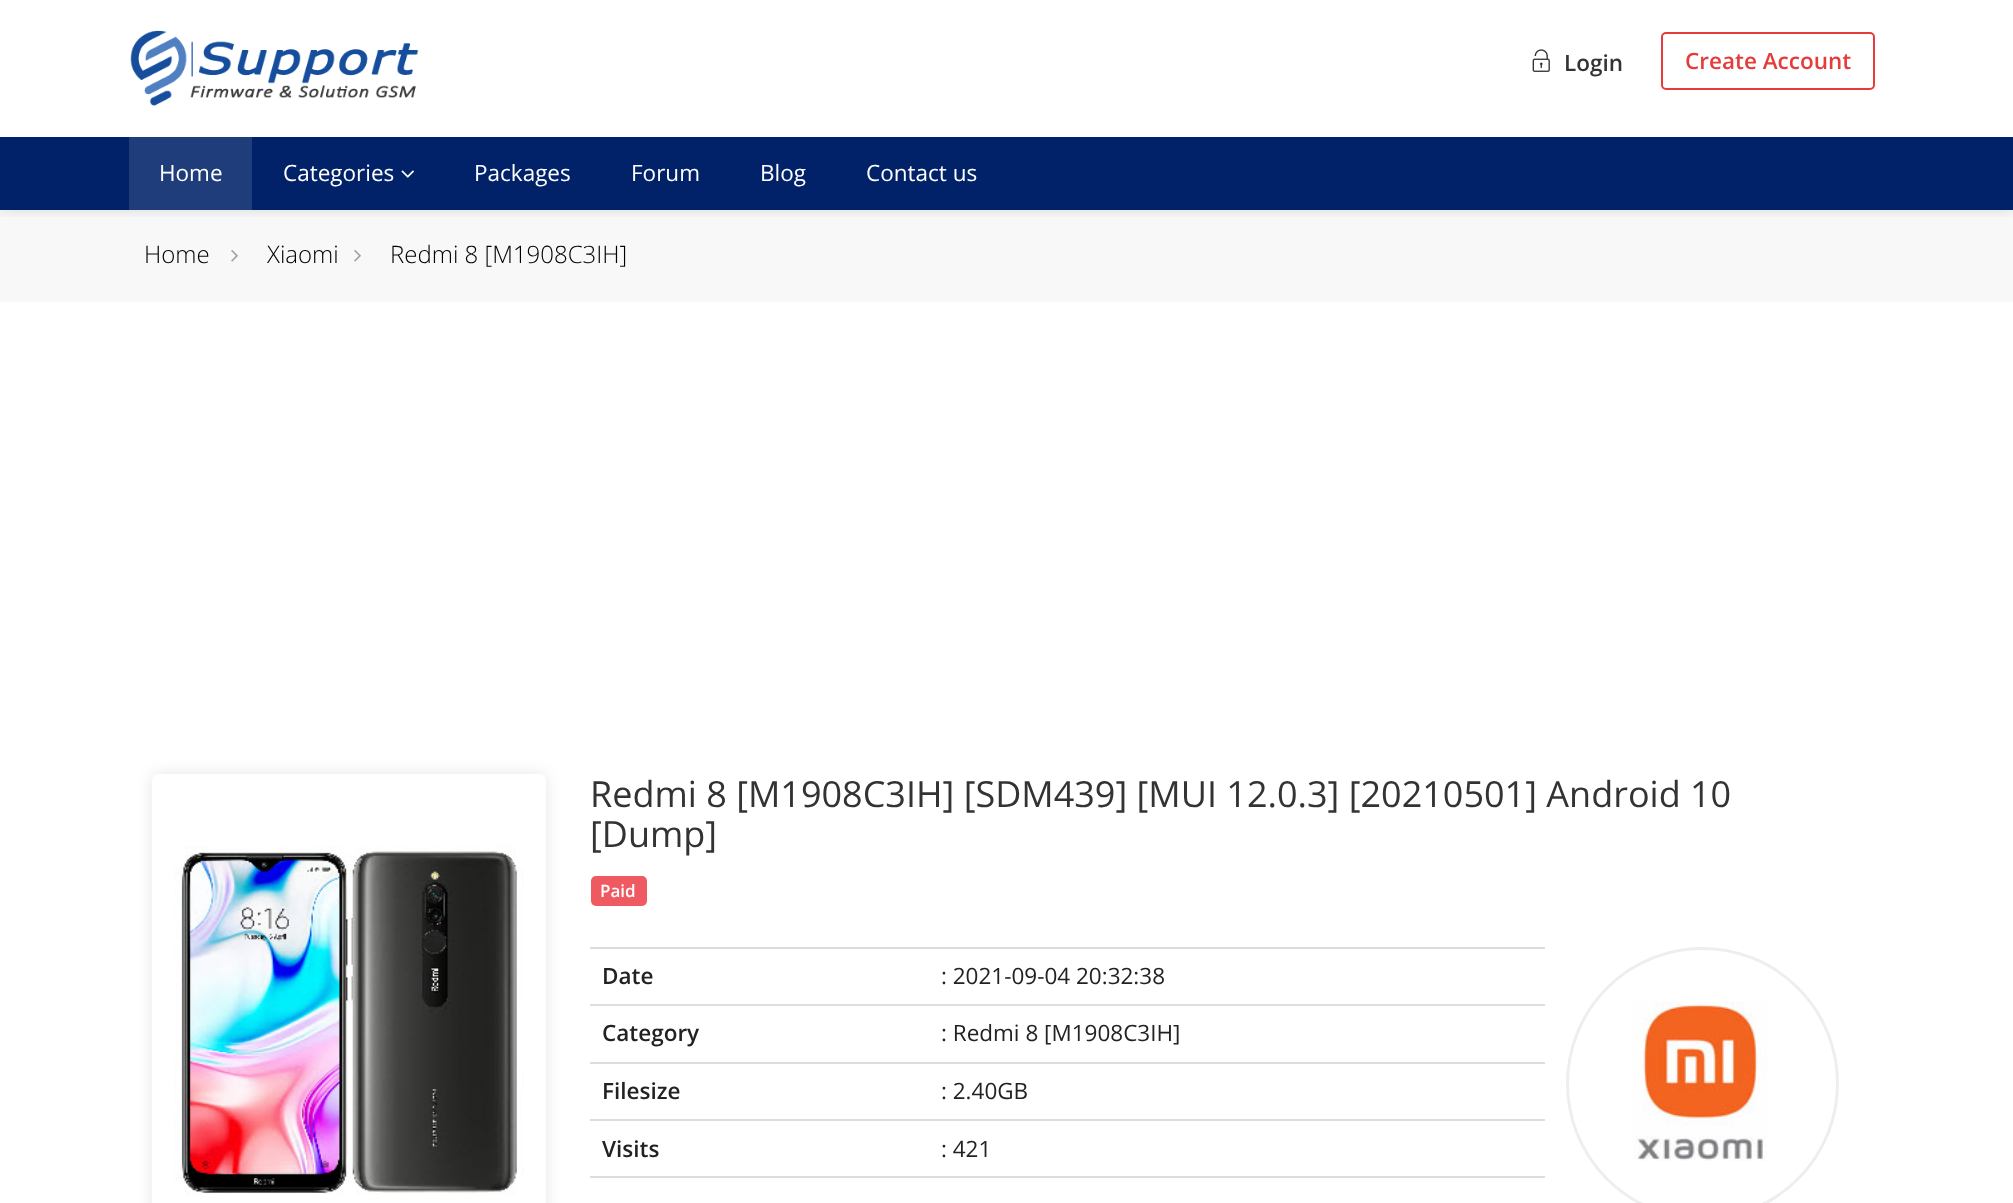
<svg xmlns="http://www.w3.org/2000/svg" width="2013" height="1203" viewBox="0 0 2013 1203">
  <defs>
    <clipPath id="clip1"><rect x="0" y="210" width="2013" height="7"/></clipPath>
  </defs>
  <rect width="100%" height="100%" fill="rgb(255,255,255)"/>
  <rect x="0" y="210" width="2013" height="92" fill="rgb(248,248,248)"/>
  <g clip-path="url(#clip1)">
    <rect x="0" y="0" width="2013" height="210" fill="rgba(0,0,0,0.12)" filter="blur(7.5px)"/>
  </g>
  <image x="130" y="30" width="289" height="76" href="pic1.png"/>
  <image x="1532" y="49" width="18" height="23" href="pic2.png"/>
  <text x="1564" y="71" font-family="Open Sans" font-size="22.5" font-weight="600" fill="rgb(51,51,51)">Login</text>
  <rect x="1662" y="33" width="212" height="56" rx="4" fill="none" stroke="rgb(230,59,59)" stroke-width="2"/>
  <text x="1685" y="69" font-family="Open Sans" font-size="22.5" font-weight="600" fill="rgb(230,59,59)">Create Account</text>
  <rect x="0" y="137" width="2013" height="73" fill="rgb(1,34,105)"/>
  <rect x="129" y="137" width="123" height="73" fill="rgb(31,61,123)"/>
  <g font-family="Open Sans" font-size="22.5" fill="rgb(255,255,255)">
    <text x="159" y="181">Home</text>
    <text x="283" y="181">Categories</text>
  </g>
  <image x="401" y="170" width="13" height="8" href="pic3.png"/>
  <g font-family="Open Sans" font-size="22.5" fill="rgb(255,255,255)">
    <text x="474" y="181">Packages</text>
    <text x="631" y="181">Forum</text>
    <text x="760" y="181">Blog</text>
    <text x="866" y="181">Contact us</text>
  </g>
  <text x="144" y="263" font-family="Open Sans" font-size="24" font-weight="300" fill="rgb(0,0,0)">Home</text>
  <image x="231" y="250" width="7" height="12" href="pic4.png"/>
  <text x="267" y="263" font-family="Open Sans" font-size="24" font-weight="300" fill="rgb(0,0,0)">Xiaomi</text>
  <image x="354" y="250" width="7" height="12" href="pic4.png"/>
  <text x="390" y="263" font-family="Open Sans" font-size="24" font-weight="300" fill="rgb(0,0,0)">Redmi 8 [M1908C3IH]</text>
  <rect x="152" y="774" width="394" height="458" rx="6" fill="rgba(0,0,0,0.1)" filter="blur(7.5px)"/>
  <rect x="152" y="774" width="394" height="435" rx="6" fill="rgb(255,255,255)"/>
  <image x="174" y="845" width="350" height="350" href="pic5.png"/>
  <g font-family="Open Sans" font-size="36" fill="rgb(51,51,51)">
    <text>
      <tspan x="590" y="807">Redmi 8 [M1908C3IH] [SDM439] [MUI 12.0.3] [20210501] Android 10</tspan>
      <tspan x="590" y="847">[Dump]</tspan>
    </text>
  </g>
  <rect x="591" y="876" width="56" height="30" rx="5" fill="rgb(239,90,98)"/>
  <text x="600" y="897" font-family="Open Sans" font-size="17" font-weight="600" fill="rgb(255,255,255)">Paid</text>
  <text x="602" y="984" font-family="Open Sans" font-size="22.5" font-weight="600" fill="rgb(34,34,34)">Date</text>
  <rect x="590" y="947" width="955" height="2" fill="rgb(221,221,221)"/>
  <text x="941" y="984" font-family="Open Sans" font-size="22.5" fill="rgb(34,34,34)">: 2021-09-04 20:32:38</text>
  <text x="602" y="1041" font-family="Open Sans" font-size="22.5" font-weight="600" fill="rgb(34,34,34)">Category</text>
  <rect x="590" y="1004" width="955" height="2" fill="rgb(221,221,221)"/>
  <text x="941" y="1041" font-family="Open Sans" font-size="22.5" fill="rgb(34,34,34)">: Redmi 8 [M1908C3IH]</text>
  <text x="602" y="1099" font-family="Open Sans" font-size="22.5" font-weight="600" fill="rgb(34,34,34)">Filesize</text>
  <rect x="590" y="1062" width="955" height="2" fill="rgb(221,221,221)"/>
  <text x="941" y="1099" font-family="Open Sans" font-size="22.5" fill="rgb(34,34,34)">: 2.40GB</text>
  <text x="602" y="1157" font-family="Open Sans" font-size="22.5" font-weight="600" fill="rgb(34,34,34)">Visits</text>
  <rect x="590" y="1119" width="955" height="2" fill="rgb(221,221,221)"/>
  <text x="941" y="1157" font-family="Open Sans" font-size="22.5" fill="rgb(34,34,34)">: 421</text>
  <rect x="590" y="1176" width="955" height="2" fill="rgb(221,221,221)"/>
  <circle cx="1702.5" cy="1083.5" r="135" fill="none" stroke="rgb(238,238,238)" stroke-width="3"/>
  <image x="1633" y="1001" width="134" height="160" href="pic6.png"/>
</svg>
